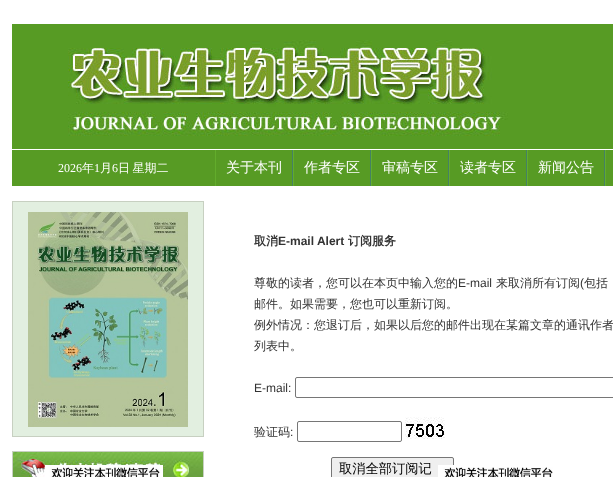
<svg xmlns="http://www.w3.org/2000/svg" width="613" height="477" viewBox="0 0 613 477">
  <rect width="100%" height="100%" fill="rgb(255,255,255)"/>
  <image x="12" y="24" width="601" height="125" href="pic1.png"/>
  <rect x="12" y="150" width="601" height="36" fill="rgb(87,155,36)"/>
  <text x="58" y="172" font-family="Liberation Serif" font-size="12" fill="rgb(255,255,255)">2026</text>
  <text x="82" y="172" font-family="WenQuanYi Zen Hei" font-size="12" font-weight="500" fill="rgb(255,255,255)">年</text>
  <text x="94" y="172" font-family="Liberation Serif" font-size="12" fill="rgb(255,255,255)">1</text>
  <text x="100" y="172" font-family="WenQuanYi Zen Hei" font-size="12" font-weight="500" fill="rgb(255,255,255)">月</text>
  <text x="112" y="172" font-family="Liberation Serif" font-size="12" fill="rgb(255,255,255)">6</text>
  <text x="118" y="172" word-spacing="-1" font-family="WenQuanYi Zen Hei" font-size="12" font-weight="500" fill="rgb(255,255,255)">日 星期二</text>
  <rect x="292" y="150" width="1" height="36" fill="rgb(69,129,99)"/>
  <rect x="215" y="150" width="1" height="36" fill="rgb(98,172,43)"/>
  <text x="226" y="172" font-family="WenQuanYi Zen Hei" font-size="14" font-weight="500" fill="rgb(255,255,255)">关于本刊</text>
  <rect x="370" y="150" width="1" height="36" fill="rgb(69,129,99)"/>
  <rect x="293" y="150" width="1" height="36" fill="rgb(98,172,43)"/>
  <text x="304" y="172" font-family="WenQuanYi Zen Hei" font-size="14" font-weight="500" fill="rgb(255,255,255)">作者专区</text>
  <rect x="448" y="150" width="1" height="36" fill="rgb(69,129,99)"/>
  <rect x="371" y="150" width="1" height="36" fill="rgb(98,172,43)"/>
  <text x="382" y="172" font-family="WenQuanYi Zen Hei" font-size="14" font-weight="500" fill="rgb(255,255,255)">审稿专区</text>
  <rect x="526" y="150" width="1" height="36" fill="rgb(69,129,99)"/>
  <rect x="449" y="150" width="1" height="36" fill="rgb(98,172,43)"/>
  <text x="460" y="172" font-family="WenQuanYi Zen Hei" font-size="14" font-weight="500" fill="rgb(255,255,255)">读者专区</text>
  <rect x="604" y="150" width="1" height="36" fill="rgb(69,129,99)"/>
  <rect x="527" y="150" width="1" height="36" fill="rgb(98,172,43)"/>
  <text x="538" y="172" font-family="WenQuanYi Zen Hei" font-size="14" font-weight="500" fill="rgb(255,255,255)">新闻公告</text>
  <rect x="605" y="150" width="1" height="36" fill="rgb(98,172,43)"/>
  <rect x="12.5" y="451.5" width="191" height="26" fill="none" stroke="rgb(199,208,193)"/>
  <image x="13" y="452" width="190" height="25" href="pic5.png"/>
  <image x="45" y="465" width="118" height="12" href="pic2.png"/>
  <rect x="331.5" y="457.5" width="122" height="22" rx="1.5" fill="rgb(239,239,239)" stroke="rgb(118,118,118)"/>
  <image x="438" y="465" width="115" height="12" href="pic3.png"/>
  <rect x="12.5" y="201.5" width="191" height="235" fill="rgb(226,239,224)" stroke="rgb(199,208,193)"/>
  <image x="28" y="212" width="160" height="215" href="pic4.png"/>
  <text x="254" y="245" font-family="WenQuanYi Zen Hei" font-size="12" font-weight="bold" fill="rgb(51,51,51)">取消</text>
  <text x="278" y="245" font-family="Liberation Sans" font-size="12" font-weight="bold" fill="rgb(51,51,51)">E-mail Alert</text>
  <text x="348" y="245" font-family="WenQuanYi Zen Hei" font-size="12" font-weight="bold" fill="rgb(51,51,51)">订阅服务</text>
  <text x="254" y="287" font-family="WenQuanYi Zen Hei" font-size="12" font-weight="500" fill="rgb(51,51,51)">尊敬的读者，您可以在本页中输入您的</text>
  <text x="458" y="287" font-family="Liberation Sans" font-size="12" fill="rgb(51,51,51)">E-mail</text>
  <text x="496" y="287" font-family="WenQuanYi Zen Hei" font-size="12" font-weight="500" fill="rgb(51,51,51)">来取消所有订阅</text>
  <text x="580" y="287" font-family="Liberation Sans" font-size="12" fill="rgb(51,51,51)">(</text>
  <g font-family="WenQuanYi Zen Hei" font-size="12" font-weight="500" fill="rgb(51,51,51)">
    <text x="584" y="287">包括</text>
    <text>
      <tspan x="254" y="308">邮件。如果需要，您也可以重新订阅。</tspan>
      <tspan x="254" y="329">例外情况：您退订后，如果以后您的邮件出现在某篇文章的通讯作者</tspan>
      <tspan x="254" y="350">列表中。</tspan>
    </text>
  </g>
  <text x="254" y="392" font-family="Liberation Sans" font-size="12" fill="rgb(51,51,51)">E-mail:</text>
  <rect x="295.5" y="377.5" width="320" height="20" rx="1.5" fill="none" stroke="rgb(118,118,118)"/>
  <text x="254" y="436" font-family="WenQuanYi Zen Hei" font-size="12" font-weight="500" fill="rgb(51,51,51)">验证码</text>
  <text x="290" y="436" font-family="Liberation Sans" font-size="12" fill="rgb(51,51,51)">:</text>
  <rect x="297.5" y="421.5" width="104" height="20" rx="1.5" fill="none" stroke="rgb(118,118,118)"/>
  <image x="405" y="417" width="40" height="22" href="pic6.png"/>
  <text x="339" y="473" font-family="WenQuanYi Zen Hei" font-size="13.25" font-weight="500" fill="rgb(0,0,0)">取消全部订阅记</text>
</svg>
